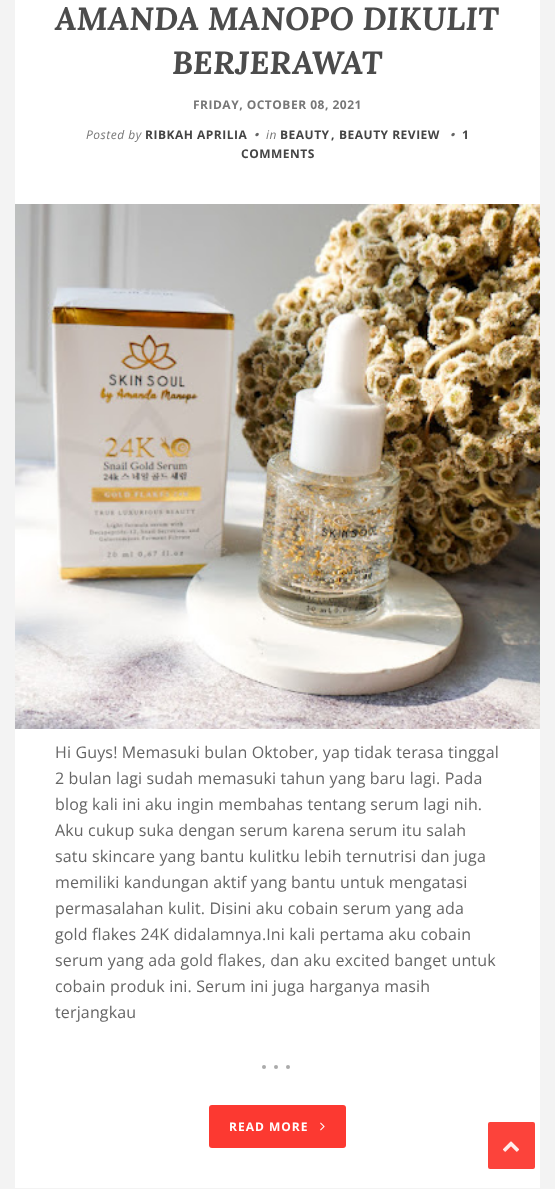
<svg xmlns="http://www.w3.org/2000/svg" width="555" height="1189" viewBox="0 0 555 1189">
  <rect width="100%" height="100%" fill="rgb(243,243,243)"/>
  <rect x="15" y="0" width="525" height="1188" fill="rgb(255,255,255)"/>
  <g font-family="Lora" font-size="32" font-weight="bold" font-style="italic" letter-spacing="0.15" fill="rgb(76,76,76)">
    <text x="55" y="30">AMANDA MANOPO DIKULIT</text>
    <text x="172" y="74">BERJERAWAT</text>
  </g>
  <text x="193" y="109" font-family="Open Sans" font-size="12" font-weight="bold" letter-spacing="0.5" fill="rgb(119,119,119)">FRIDAY, OCTOBER 08, 2021</text>
  <text x="86" y="139" font-family="Open Sans" font-size="12" font-style="italic" letter-spacing="0.5" fill="rgb(119,119,119)">Posted by</text>
  <text x="145" y="139" font-family="Open Sans" font-size="12" font-weight="bold" letter-spacing="0.5" fill="rgb(68,68,68)">RIBKAH APRILIA</text>
  <image x="255" y="132" width="4" height="5" href="pic1.png"/>
  <text x="266" y="139" font-family="Open Sans" font-size="12" font-style="italic" letter-spacing="0.5" fill="rgb(119,119,119)">in</text>
  <g font-family="Open Sans" font-size="12" font-weight="bold" letter-spacing="0.5" fill="rgb(68,68,68)">
    <text x="280" y="139">BEAUTY</text>
    <text x="339" y="139">BEAUTY REVIEW</text>
  </g>
  <image x="451" y="132" width="4" height="5" href="pic1.png"/>
  <g font-family="Open Sans" font-size="12" font-weight="bold" letter-spacing="0.5" fill="rgb(68,68,68)">
    <text x="462" y="139">1</text>
    <text x="331" y="139">,</text>
    <text x="241" y="158">COMMENTS</text>
  </g>
  <image x="15" y="204" width="525" height="525" href="pic2.png"/>
  <g font-family="Open Sans" font-size="16" letter-spacing="0.15" fill="rgb(102,102,102)">
    <text>
      <tspan x="55" y="758">Hi Guys! Memasuki bulan Oktober, yap tidak terasa tinggal</tspan>
      <tspan x="55" y="784">2 bulan lagi sudah memasuki tahun yang baru lagi. Pada</tspan>
      <tspan x="55" y="810">blog kali ini aku ingin membahas tentang serum lagi nih.</tspan>
      <tspan x="55" y="836">Aku cukup suka dengan serum karena serum itu salah</tspan>
      <tspan x="55" y="862">satu skincare yang bantu kulitku lebih ternutrisi dan juga</tspan>
      <tspan x="55" y="888">memiliki kandungan aktif yang bantu untuk mengatasi</tspan>
      <tspan x="55" y="914">permasalahan kulit. Disini aku cobain serum yang ada</tspan>
      <tspan x="55" y="940">gold flakes 24K didalamnya.Ini kali pertama aku cobain</tspan>
      <tspan x="55" y="966">serum yang ada gold flakes, dan aku excited banget untuk</tspan>
      <tspan x="55" y="992">cobain produk ini. Serum ini juga harganya masih</tspan>
      <tspan x="55" y="1018">terjangkau</tspan>
    </text>
  </g>
  <rect x="209" y="1105" width="137" height="43" rx="3" fill="rgb(252,57,49)"/>
  <circle cx="288" cy="1067" r="2" fill="rgb(170,170,170)"/>
  <circle cx="276" cy="1067" r="2" fill="rgb(170,170,170)"/>
  <circle cx="264" cy="1067" r="2" fill="rgb(171,171,171)"/>
  <text x="229" y="1131" font-family="Open Sans" font-size="12" font-weight="bold" letter-spacing="1" fill="rgb(255,255,255)">READ MORE</text>
  <image x="320" y="1122" width="5" height="9" href="pic3.png"/>
  <rect x="488" y="1122" width="47" height="47" rx="2" fill="rgb(252,67,59)"/>
  <image x="503" y="1141" width="16" height="11" href="pic4.png"/>
</svg>
